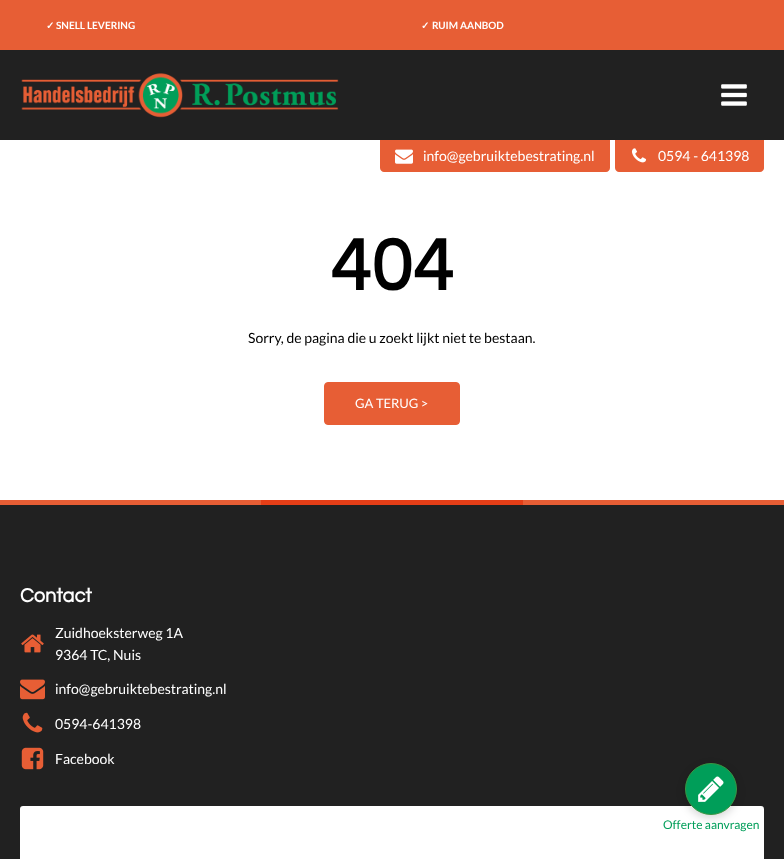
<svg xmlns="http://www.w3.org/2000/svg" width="784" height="859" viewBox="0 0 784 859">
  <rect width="100%" height="100%" fill="rgb(255,255,255)"/>
  <rect x="0" y="0" width="784" height="50" fill="rgb(231,94,53)"/>
  <text x="46" y="29" font-family="DejaVu Sans" font-size="10" font-weight="bold" fill="rgb(255,255,255)">✓</text>
  <text x="56" y="29" font-family="Lato" font-size="10" font-weight="bold" fill="rgb(255,255,255)">SNELL LEVERING</text>
  <text x="421" y="29" font-family="DejaVu Sans" font-size="10" font-weight="bold" fill="rgb(255,255,255)">✓</text>
  <text x="432" y="29" font-family="Lato" font-size="10" font-weight="bold" fill="rgb(255,255,255)">RUIM AANBOD</text>
  <rect x="0" y="50" width="784" height="90" fill="rgb(33,33,33)"/>
  <image x="21" y="73" width="318" height="45" href="pic1.png"/>
  <image x="721" y="84" width="26" height="22" href="pic2.png"/>
  <path d="M380 140H610V168C610 170 608 172 606 172H384C382 172 380 170 380 168Z" fill="rgb(231,94,53)"/>
  <image x="395" y="149" width="18" height="15" href="pic3.png"/>
  <text x="423" y="161" font-family="Lato" font-size="14" fill="rgb(255,255,255)">info@gebruiktebestrating.nl</text>
  <path d="M615 140H764V168C764 170 762 172 760 172H619C617 172 615 170 615 168Z" fill="rgb(231,94,53)"/>
  <image x="631" y="148" width="16" height="15" href="pic4.png"/>
  <text x="658" y="161" font-family="Lato" font-size="14" fill="rgb(255,255,255)">0594 - 641398</text>
  <text x="330" y="290" font-family="Questrial" font-size="75" font-weight="bold" fill="rgb(0,0,0)">404</text>
  <text x="248" y="343" font-family="Lato" font-size="14" fill="rgb(0,0,0)">Sorry, de pagina die u zoekt lijkt niet te bestaan.</text>
  <rect x="324.5" y="382.5" width="135" height="42" rx="3.5" fill="rgb(231,94,53)" stroke="rgb(231,94,53)"/>
  <text x="355" y="408" font-family="Lato" font-size="13" fill="rgb(255,255,255)">GA TERUG &gt;</text>
  <rect x="0" y="500" width="261" height="5" fill="rgb(231,94,53)"/>
  <rect x="261" y="500" width="262" height="5" fill="rgb(229,62,23)"/>
  <rect x="523" y="500" width="261" height="5" fill="rgb(231,94,53)"/>
  <rect x="0" y="505" width="784" height="354" fill="rgb(33,33,33)"/>
  <text x="20" y="602" font-family="Questrial" font-size="20" font-weight="bold" fill="rgb(255,255,255)">Contact</text>
  <image x="21" y="634" width="23" height="19" href="pic5.png"/>
  <g font-family="Lato" font-size="14" fill="rgb(255,255,255)">
    <text>
      <tspan x="55" y="638">Zuidhoeksterweg 1A</tspan>
      <tspan x="55" y="660">9364 TC, Nuis</tspan>
    </text>
  </g>
  <image x="20" y="679" width="25" height="21" href="pic6.png"/>
  <text x="55" y="694" font-family="Lato" font-size="14" fill="rgb(255,255,255)">info@gebruiktebestrating.nl</text>
  <image x="22" y="712" width="21" height="21" href="pic7.png"/>
  <text x="55" y="729" font-family="Lato" font-size="14" fill="rgb(255,255,255)">0594-641398</text>
  <image x="21" y="747" width="23" height="23" href="pic8.png"/>
  <text x="55" y="764" font-family="Lato" font-size="14" fill="rgb(255,255,255)">Facebook</text>
  <rect x="20" y="806" width="744" height="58" rx="3" fill="rgba(0,0,0,0.5)" filter="blur(0.5px)"/>
  <rect x="20" y="806" width="744" height="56" rx="3" fill="rgb(255,255,255)"/>
  <rect x="685" y="766" width="52" height="52" rx="26" fill="rgba(0,0,0,0.16)" filter="blur(4.5px)"/>
  <circle cx="711" cy="789" r="25.5" fill="rgb(0,158,89)" stroke="rgb(57,150,66)"/>
  <image x="698" y="776" width="26" height="26" href="pic9.png"/>
  <text x="663" y="829" font-family="Lato" font-size="12" fill="rgb(0,158,89)">Offerte aanvragen</text>
</svg>
